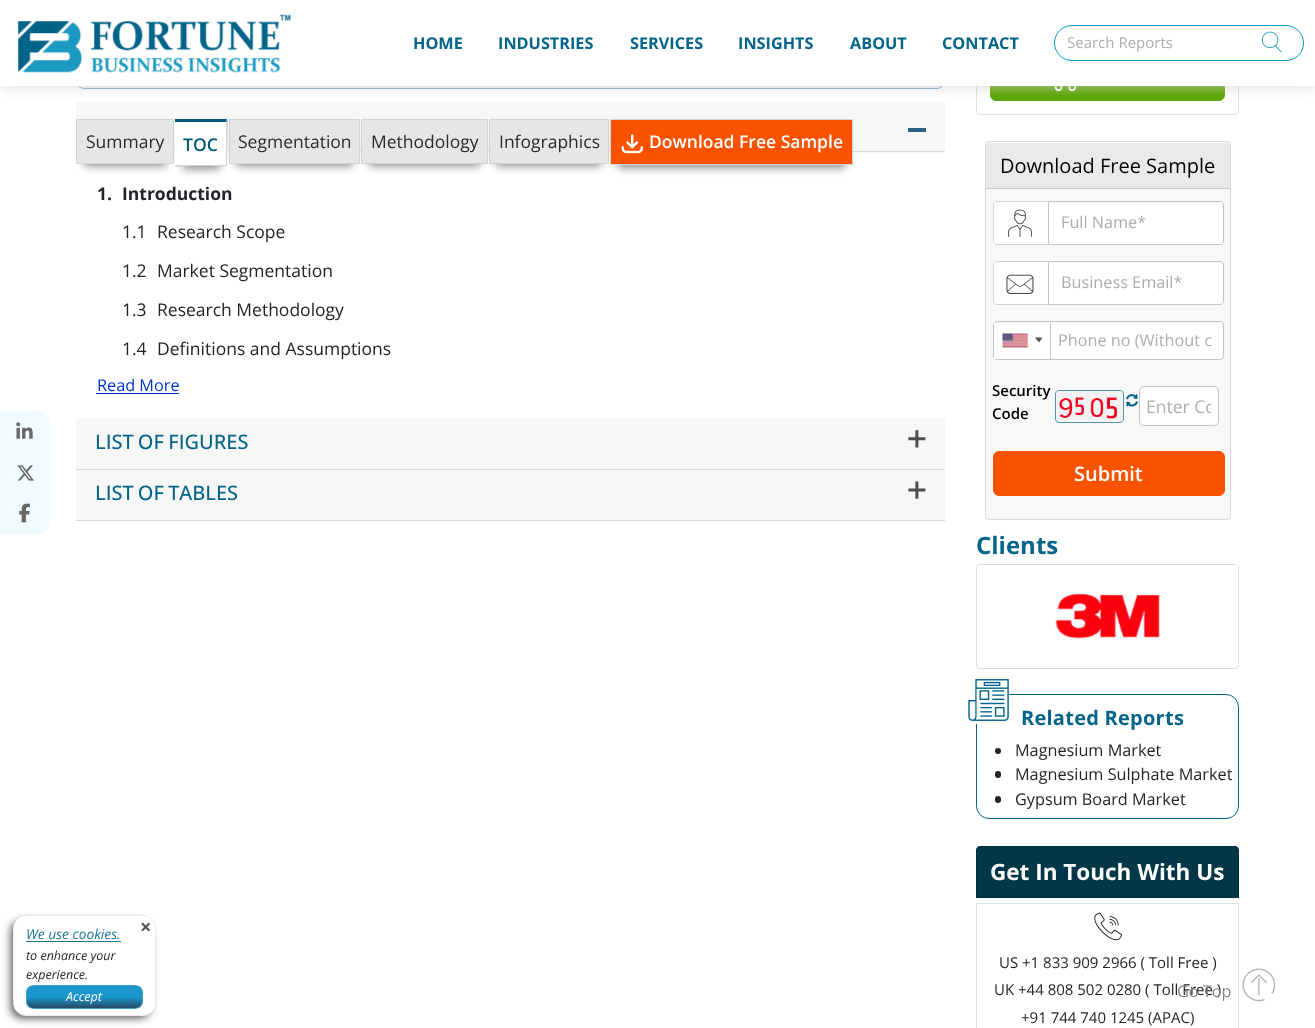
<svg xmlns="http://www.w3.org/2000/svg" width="1315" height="1028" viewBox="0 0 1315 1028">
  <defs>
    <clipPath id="clip1"><rect x="1146" y="394" width="65" height="24"/></clipPath>
    <clipPath id="clip2"><rect x="26" y="985" width="117" height="24" rx="8"/></clipPath>
    <linearGradient id="g1" gradientUnits="userSpaceOnUse" x1="84" y1="986" x2="84" y2="1008"><stop offset="0" stop-color="rgb(27,150,207)"/><stop offset="0.5" stop-color="rgb(27,150,207)"/><stop offset="1" stop-color="rgb(37,74,103)"/></linearGradient>
  </defs>
  <rect width="100%" height="100%" fill="rgb(255,255,255)"/>
  <rect x="76.5" y="-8.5" width="868" height="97" rx="7.5" fill="rgb(237,247,255)" stroke="rgb(128,168,199)"/>
  <path d="M78.5 101H942.5C944 101 945 102 945 103.5V153H76V103.5C76 102 77 101 78.5 101Z" fill="rgb(247,247,247)"/>
  <rect x="976.5" y="39.5" width="262" height="75" rx="3.5" fill="none" stroke="rgb(223,223,223)"/>
  <rect x="990.5" y="53.5" width="234" height="47" rx="5.5" fill="rgb(90,166,0)" stroke="rgb(90,166,0)"/>
  <image x="1054" y="86" width="23" height="6" href="pic9.png"/>
  <rect x="0" y="3" width="1315" height="86" fill="rgba(204,204,204,0.57)" filter="blur(6px)"/>
  <rect x="0" y="0" width="1315" height="86" fill="rgb(255,255,255)"/>
  <image x="17" y="14" width="275" height="59" href="pic1.png"/>
  <g font-family="Open Sans" font-size="16.25" font-weight="bold" fill="rgb(4,100,137)">
    <text x="413" y="49">HOME</text>
    <text x="498" y="49">INDUSTRIES</text>
    <text x="630" y="49">SERVICES</text>
    <text x="738" y="49">INSIGHTS</text>
    <text x="850" y="49">ABOUT</text>
    <text x="942" y="49">CONTACT</text>
  </g>
  <rect x="1054.5" y="25.5" width="249" height="35" rx="17.5" fill="none" stroke="rgb(0,153,193)"/>
  <text x="1067" y="48" font-family="Open Sans" font-size="15" fill="rgb(173,173,173)">Search Reports</text>
  <image x="1261" y="31" width="21" height="22" href="pic2.png"/>
  <path d="M0 411H37C44 411 50 417 50 424V521C50 528 44 534 37 534H0Z" fill="rgb(240,251,255)"/>
  <image x="16" y="422" width="17" height="17" href="pic3.png"/>
  <image x="17" y="465" width="17" height="16" href="pic4.png"/>
  <image x="19" y="503" width="11" height="20" href="pic5.png"/>
  <rect x="174" y="151" width="771" height="1" fill="rgb(216,216,216)"/>
  <rect x="84" y="136" width="82" height="30" fill="rgba(0,0,0,0.45)" filter="blur(4px)"/>
  <path d="M76.5 119.5H173.5V163C173.5 163.5 173.5 163.5 173 163.5H77C76.5 163.5 76.5 163.5 76.5 163Z" fill="rgb(230,230,229)" stroke="rgb(211,211,211)"/>
  <text x="86" y="148" font-family="Open Sans" font-size="17.5" fill="rgb(43,43,43)">Summary</text>
  <rect x="183" y="136" width="37" height="33" fill="rgba(0,0,0,0.45)" filter="blur(4px)"/>
  <path d="M175 119H228V165C228 165.5 227.5 166 227 166H176C175.5 166 175 165.5 175 165Z" fill="rgb(255,255,255)"/>
  <path d="M175 122H226V123L227 119H175Z" fill="rgb(0,89,120)"/>
  <path d="M226 123L228 119L227 166L226 165Z" fill="rgb(211,211,211)"/>
  <path d="M175 165H226L227 166H184C181 166 177 168 175 166Z" fill="rgb(211,211,211)"/>
  <text x="183" y="151" font-family="Open Sans" font-size="17.5" font-weight="600" fill="rgb(0,89,120)">TOC</text>
  <rect x="236" y="136" width="117" height="30" fill="rgba(0,0,0,0.45)" filter="blur(4px)"/>
  <path d="M229.5 119.5H359.5V163C359.5 163.5 359.5 163.5 359 163.5H230C229.5 163.5 229.5 163.5 229.5 163Z" fill="rgb(230,230,229)" stroke="rgb(211,211,211)"/>
  <text x="238" y="148" font-family="Open Sans" font-size="17.5" fill="rgb(43,43,43)">Segmentation</text>
  <rect x="369" y="136" width="111" height="30" fill="rgba(0,0,0,0.45)" filter="blur(4px)"/>
  <path d="M361.5 119.5H487.5V163C487.5 163.5 487.5 163.5 487 163.5H362C361.5 163.5 361.5 163.5 361.5 163Z" fill="rgb(230,230,229)" stroke="rgb(211,211,211)"/>
  <text x="371" y="148" font-family="Open Sans" font-size="17.5" fill="rgb(43,43,43)">Methodology</text>
  <rect x="496" y="136" width="105" height="30" fill="rgba(0,0,0,0.45)" filter="blur(4px)"/>
  <path d="M489.5 119.5H608.5V163C608.5 163.5 608.5 163.5 608 163.5H490C489.5 163.5 489.5 163.5 489.5 163Z" fill="rgb(230,230,229)" stroke="rgb(211,211,211)"/>
  <text x="499" y="148" font-family="Open Sans" font-size="17.5" fill="rgb(43,43,43)">Infographics</text>
  <rect x="618" y="136" width="227" height="32" fill="rgba(0,0,0,0.45)" filter="blur(4px)"/>
  <path d="M610.5 119.5H852.5V164C852.5 164.5 852.5 164.5 852 164.5H611C610.5 164.5 610.5 164.5 610.5 164Z" fill="rgb(251,82,0)" stroke="rgb(211,211,211)"/>
  <image x="621" y="134" width="22" height="20" href="pic6.png"/>
  <text x="649" y="148" font-family="Open Sans" font-size="17.5" font-weight="600" fill="rgb(255,255,255)">Download Free Sample</text>
  <rect x="908" y="128" width="18" height="4" fill="rgb(42,98,133)"/>
  <g font-family="Open Sans" font-size="17.5" font-weight="bold" fill="rgb(33,37,41)">
    <text x="97" y="200">1.</text>
    <text x="122" y="200">Introduction</text>
  </g>
  <g font-family="Open Sans" font-size="17.5" fill="rgb(33,37,41)">
    <text x="122" y="238">1.1</text>
    <text x="157" y="238">Research Scope</text>
    <text x="122" y="277">1.2</text>
    <text x="157" y="277">Market Segmentation</text>
    <text x="122" y="316">1.3</text>
    <text x="157" y="316">Research Methodology</text>
    <text x="122" y="355">1.4</text>
    <text x="157" y="355">Definitions and Assumptions</text>
  </g>
  <text x="97" y="391" font-family="Open Sans" font-size="16.25" fill="rgb(0,51,204)">Read More</text>
  <rect x="96" y="393" width="83" height="1" fill="rgb(0,51,204)"/>
  <path d="M78.5 418H942.5C944 418 945 419 945 420.5V470H76V420.5C76 419 77 418 78.5 418Z" fill="rgb(247,247,247)"/>
  <rect x="76" y="469" width="869" height="1" fill="rgb(216,216,216)"/>
  <text x="95" y="449" word-spacing="-1" font-family="Open Sans" font-size="20" font-weight="500" fill="rgb(4,100,137)">LIST OF FIGURES</text>
  <image x="908" y="430" width="18" height="18" href="pic7.png"/>
  <path d="M78.5 470H942.5C944 470 945 471 945 472.5V521H76V472.5C76 471 77 470 78.5 470Z" fill="rgb(247,247,247)"/>
  <rect x="76" y="520" width="869" height="1" fill="rgb(216,216,216)"/>
  <text x="95" y="500" word-spacing="-1" font-family="Open Sans" font-size="20" font-weight="500" fill="rgb(4,100,137)">LIST OF TABLES</text>
  <image x="908" y="481" width="18" height="18" href="pic8.png"/>
  <rect x="985.5" y="141.5" width="245" height="378" rx="3.5" fill="rgb(248,248,248)" stroke="rgb(217,217,217)"/>
  <path d="M988.5 143H1227.5C1229 143 1230 144 1230 145.5V189H986V145.5C986 144 987 143 988.5 143Z" fill="rgb(234,234,234)"/>
  <rect x="986" y="188" width="244" height="1" fill="rgb(205,205,205)"/>
  <text x="1000" y="173" font-family="Open Sans" font-size="20" fill="rgb(7,1,1)">Download Free Sample</text>
  <path d="M997 201.5H1048.5V244.5H997C995 244.5 993.5 243 993.5 241V205C993.5 203 995 201.5 997 201.5Z" fill="rgb(255,255,255)" stroke="rgb(206,212,218)"/>
  <image x="1008" y="209" width="24" height="28" href="pic10.png"/>
  <path d="M1049 203H1220.5C1222 203 1223 204 1223 205.5V241.5C1223 243 1222 244 1220.5 244H1049Z" fill="rgb(255,255,255)"/>
  <path d="M1048.5 201.5H1220C1222 201.5 1223.5 203 1223.5 205V241C1223.5 243 1222 244.5 1220 244.5H1048.5Z" fill="none" stroke="rgb(197,197,197)"/>
  <text x="1061" y="228" font-family="Open Sans" font-size="16.25" fill="rgb(173,173,173)">Full Name*</text>
  <path d="M997 261.5H1048.5V304.5H997C995 304.5 993.5 303 993.5 301V265C993.5 263 995 261.5 997 261.5Z" fill="rgb(255,255,255)" stroke="rgb(206,212,218)"/>
  <image x="1006" y="274" width="28" height="20" href="pic11.png"/>
  <path d="M1049 263H1220.5C1222 263 1223 264 1223 265.5V301.5C1223 303 1222 304 1220.5 304H1049Z" fill="rgb(255,255,255)"/>
  <path d="M1048.5 261.5H1220C1222 261.5 1223.5 263 1223.5 265V301C1223.5 303 1222 304.5 1220 304.5H1048.5Z" fill="none" stroke="rgb(197,197,197)"/>
  <text x="1061" y="288" font-family="Open Sans" font-size="16.25" fill="rgb(173,173,173)">Business Email*</text>
  <rect x="994" y="323" width="229" height="36" rx="2.5" fill="rgb(255,255,255)"/>
  <rect x="993.5" y="321.5" width="230" height="38" rx="3.5" fill="none" stroke="rgb(197,197,197)"/>
  <rect x="994" y="323" width="3" height="36" fill="rgb(255,255,255)"/>
  <rect x="1050" y="323" width="1" height="36" fill="rgb(197,197,197)"/>
  <rect x="1003" y="334" width="25" height="14" fill="rgb(136,136,136)" filter="blur(0.5px)"/>
  <rect x="1003" y="334" width="25" height="14" fill="rgb(219,219,219)"/>
  <image x="1002" y="333" width="26" height="15" href="pic12.png"/>
  <path d="M1035 337.5H1042.5L1039 342.5Z" fill="rgb(85,85,85)"/>
  <text x="1058" y="346" font-family="Open Sans" font-size="16.25" fill="rgb(173,173,173)">Phone no (Without c</text>
  <g font-family="Open Sans" font-size="15" font-weight="600" fill="rgb(0,0,0)">
    <text>
      <tspan x="992" y="396">Security</tspan>
      <tspan x="992" y="419">Code</tspan>
    </text>
  </g>
  <rect x="1055.5" y="390.5" width="68" height="32" rx="3.5" fill="none" stroke="rgb(86,145,171)"/>
  <image x="1056" y="391" width="67" height="30" href="pic13.png"/>
  <image x="1126" y="394" width="12" height="13" href="pic14.png"/>
  <rect x="1140" y="388" width="78" height="37" rx="4" fill="rgb(255,255,255)"/>
  <rect x="1139.5" y="386.5" width="79" height="39" rx="4.5" fill="none" stroke="rgb(197,197,197)"/>
  <g clip-path="url(#clip1)">
    <text x="1146" y="413" font-family="Open Sans" font-size="17.5" fill="rgb(173,173,173)">Enter Co</text>
  </g>
  <rect x="993.5" y="451.5" width="231" height="44" rx="5.5" fill="rgb(251,82,0)" stroke="rgb(251,82,0)"/>
  <text x="1074" y="481" font-family="Open Sans" font-size="20" font-weight="600" fill="rgb(255,255,255)">Submit</text>
  <text x="976" y="554" font-family="Open Sans" font-size="24" font-weight="bold" fill="rgb(4,100,137)">Clients</text>
  <rect x="976.5" y="564.5" width="262" height="104" rx="3.5" fill="none" stroke="rgb(223,223,223)"/>
  <image x="1055" y="593" width="105" height="46" href="pic15.png"/>
  <rect x="976.5" y="694.5" width="262" height="124" rx="12.5" fill="none" stroke="rgb(4,100,137)"/>
  <rect x="976" y="694" width="33" height="30" fill="rgb(255,255,255)"/>
  <image x="968" y="679" width="41" height="42" href="pic16.png"/>
  <text x="1021" y="725" font-family="Open Sans" font-size="20" font-weight="bold" letter-spacing="0.25" fill="rgb(4,100,137)">Related Reports</text>
  <circle cx="998" cy="751" r="3" fill="rgb(33,37,41)"/>
  <text x="1015" y="756" font-family="Open Sans" font-size="16.25" fill="rgb(33,37,41)">Magnesium Market</text>
  <rect x="995" y="771" width="6" height="7" rx="3" fill="rgb(33,37,41)"/>
  <text x="1015" y="780" font-family="Open Sans" font-size="16.25" fill="rgb(33,37,41)">Magnesium Sulphate Market</text>
  <rect x="995" y="796" width="6" height="7" rx="3" fill="rgb(33,37,41)"/>
  <text x="1015" y="805" font-family="Open Sans" font-size="16.25" fill="rgb(33,37,41)">Gypsum Board Market</text>
  <path d="M980 846H1235C1237 846 1239 848 1239 850V898H976V850C976 848 978 846 980 846Z" fill="rgb(1,55,71)"/>
  <path d="M980 846.5H1235C1237 846.5 1238.5 848 1238.5 850V897.5H976.5V850C976.5 848 978 846.5 980 846.5Z" fill="none" stroke="rgba(0,0,0,0.12)"/>
  <text x="990" y="880" font-family="Open Sans" font-size="22.5" font-weight="bold" fill="rgb(255,255,255)">Get In Touch With Us</text>
  <rect x="976.5" y="903.5" width="262" height="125" fill="none" stroke="rgb(223,223,223)"/>
  <image x="1094" y="912" width="28" height="29" href="pic17.png"/>
  <text x="999" y="968" font-family="Open Sans" font-size="15" fill="rgb(31,31,30)">US</text>
  <text x="1022" y="968" font-family="Open Sans" font-size="15" fill="rgb(33,37,41)">+1 833 909 2966 ( Toll Free )</text>
  <text x="994" y="995" font-family="Open Sans" font-size="15" fill="rgb(31,31,30)">UK</text>
  <g font-family="Open Sans" font-size="15" fill="rgb(33,37,41)">
    <text x="1018" y="995">+44 808 502 0280 ( Toll Free )</text>
    <text x="1021" y="1023">+91 744 740 1245 (APAC)</text>
  </g>
  <rect x="11" y="921" width="139" height="97" rx="10" fill="rgb(83,83,83)" filter="blur(4.5px)"/>
  <rect x="13.5" y="915.5" width="142" height="100" rx="12.5" fill="rgb(255,255,255)" stroke="rgb(235,235,235)"/>
  <text x="140" y="934" font-family="Open Sans" font-size="20" font-weight="bold" fill="rgb(83,83,83)">×</text>
  <text x="26" y="939" font-family="Open Sans" font-size="13.75" font-style="italic" fill="rgb(26,115,148)">We use cookies.</text>
  <rect x="26" y="941" width="95" height="1" fill="rgb(26,115,148)"/>
  <g font-family="Open Sans" font-size="12.5" font-style="italic" fill="rgb(31,31,30)">
    <text>
      <tspan x="26" y="960">to enhance your</tspan>
      <tspan x="26" y="979">experience.</tspan>
    </text>
  </g>
  <g clip-path="url(#clip2)">
    <rect x="26" y="986" width="117" height="22" fill="url(#g1)"/>
  </g>
  <rect x="26.5" y="985.5" width="116" height="23" rx="7.5" fill="none" stroke="rgb(59,161,197)"/>
  <text x="66" y="1001" font-family="Open Sans" font-size="12.5" font-style="italic" fill="rgb(255,255,255)">Accept</text>
  <text x="1177" y="997" font-family="Open Sans" font-size="16.25" fill="rgb(132,131,130)">Go Top</text>
  <image x="1242" y="968" width="34" height="34" href="pic18.png"/>
</svg>
